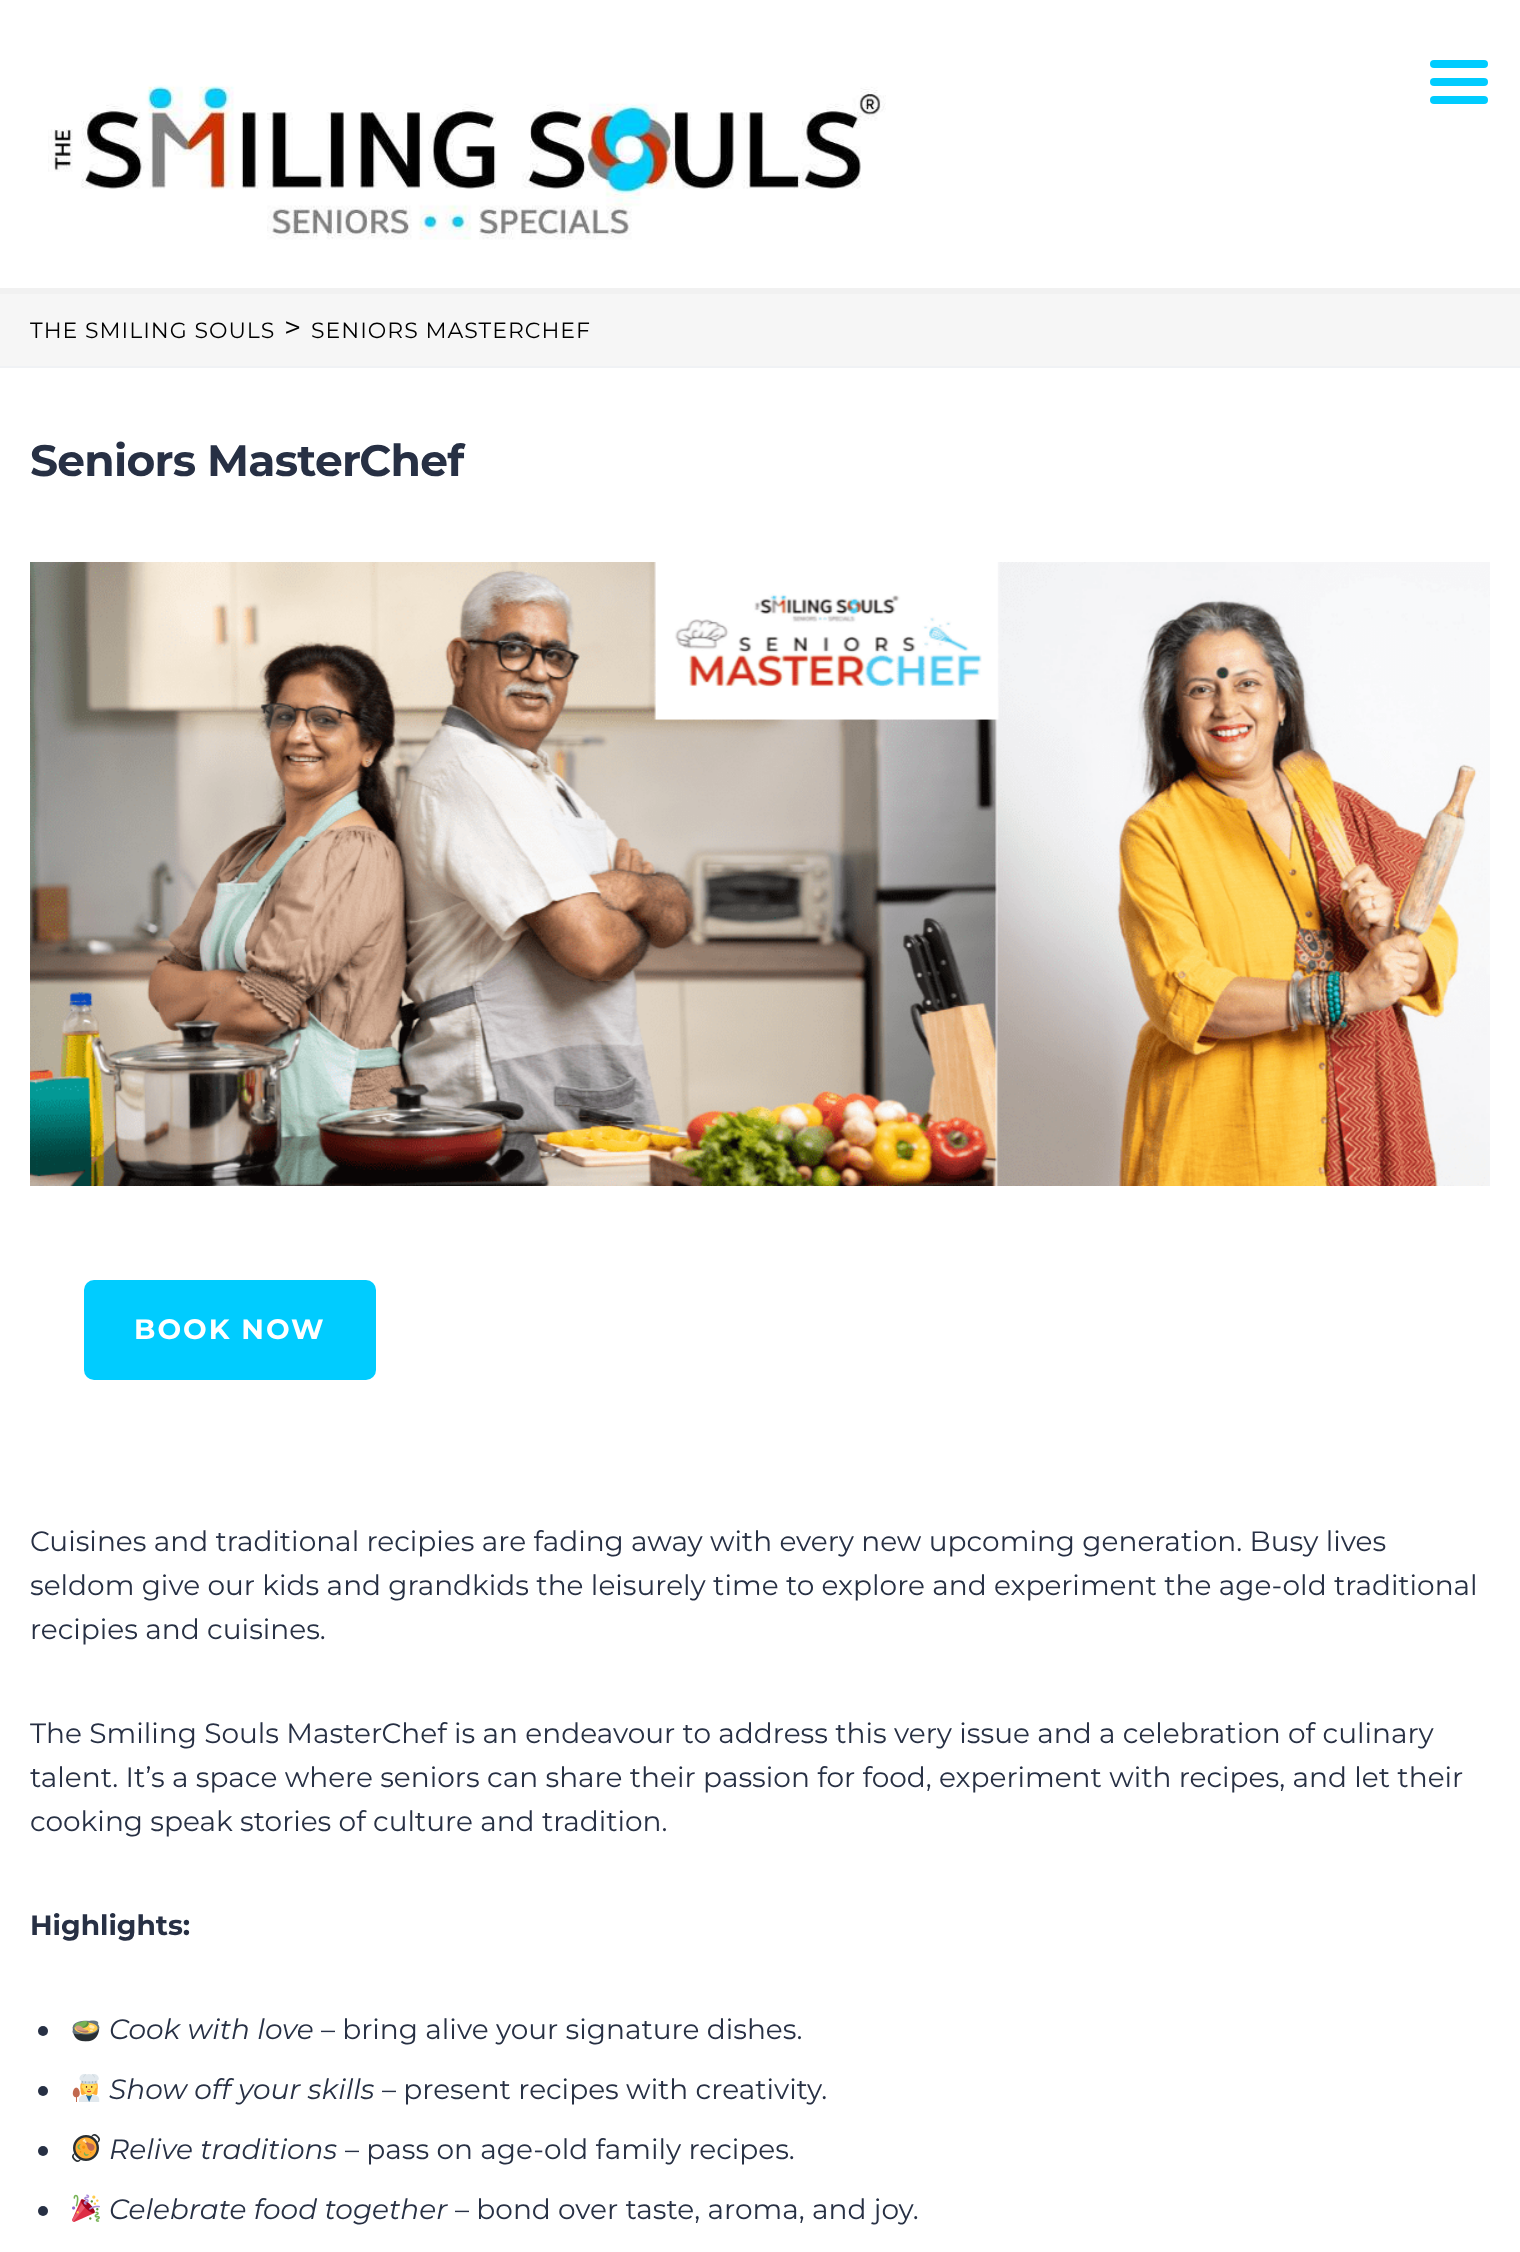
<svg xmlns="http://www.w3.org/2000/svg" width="1520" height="2252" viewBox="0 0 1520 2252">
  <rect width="100%" height="100%" fill="rgb(255,255,255)"/>
  <image x="48" y="85" width="838" height="155" href="pic1.png"/>
  <rect x="1430" y="60" width="58" height="8" rx="4" fill="rgb(0,204,255)"/>
  <rect x="1430" y="78" width="58" height="8" rx="4" fill="rgb(0,204,255)"/>
  <rect x="1430" y="96" width="58" height="8" rx="4" fill="rgb(0,204,255)"/>
  <rect x="0" y="288" width="1520" height="6" fill="rgb(241,241,241)"/>
  <rect x="0" y="294" width="1520" height="72" fill="rgb(246,246,246)"/>
  <rect x="0" y="366" width="1520" height="2" fill="rgb(240,242,245)"/>
  <text x="30" y="338" font-family="Montserrat" font-size="22" letter-spacing="1" fill="rgb(0,0,0)">THE SMILING SOULS</text>
  <text x="284" y="338" font-family="Montserrat" font-size="30" letter-spacing="1" fill="rgb(0,0,0)">&gt;</text>
  <text x="311" y="338" font-family="Montserrat" font-size="22" letter-spacing="1" fill="rgb(0,0,0)">SENIORS MASTERCHEF</text>
  <text x="30" y="476" font-family="Montserrat" font-size="44" font-weight="bold" letter-spacing="-0.75" fill="rgb(39,48,68)">Seniors MasterChef</text>
  <image x="30" y="562" width="1460" height="624" href="pic2.png"/>
  <rect x="84" y="1280" width="292" height="100" rx="10" fill="rgb(0,204,255)"/>
  <text x="134" y="1339" font-family="Montserrat" font-size="28" font-weight="bold" letter-spacing="2" fill="rgb(255,255,255)">BOOK NOW</text>
  <g font-family="Montserrat" font-size="28" fill="rgb(39,48,68)">
    <text>
      <tspan x="30" y="1551">Cuisines and traditional recipies are fading away with every new upcoming generation. Busy lives</tspan>
      <tspan x="30" y="1595">seldom give our kids and grandkids the leisurely time to explore and experiment the age-old traditional</tspan>
      <tspan x="30" y="1639">recipies and cuisines.</tspan>
    </text>
    <text>
      <tspan x="30" y="1743">The Smiling Souls MasterChef is an endeavour to address this very issue and a celebration of culinary</tspan>
      <tspan x="30" y="1787">talent. It’s a space where seniors can share their passion for food, experiment with recipes, and let their</tspan>
      <tspan x="30" y="1831">cooking speak stories of culture and tradition.</tspan>
    </text>
  </g>
  <text x="30" y="1935" font-family="Montserrat" font-size="28" font-weight="bold" fill="rgb(39,48,68)">Highlights:</text>
  <circle cx="43" cy="2031" r="5" fill="rgb(39,48,68)"/>
  <image x="72" y="2020" width="28" height="22" href="pic3.png"/>
  <text x="109" y="2039" font-family="Montserrat" font-size="28" font-style="italic" fill="rgb(39,48,68)">Cook with love</text>
  <text x="321" y="2039" font-family="Montserrat" font-size="28" fill="rgb(39,48,68)">– bring alive your signature dishes.</text>
  <circle cx="43" cy="2091" r="5" fill="rgb(39,48,68)"/>
  <image x="72" y="2074" width="28" height="28" href="pic4.png"/>
  <text x="109" y="2099" font-family="Montserrat" font-size="28" font-style="italic" fill="rgb(39,48,68)">Show off your skills</text>
  <text x="382" y="2099" font-family="Montserrat" font-size="28" fill="rgb(39,48,68)">– present recipes with creativity.</text>
  <circle cx="43" cy="2151" r="5" fill="rgb(39,48,68)"/>
  <image x="72" y="2134" width="28" height="28" href="pic5.png"/>
  <text x="109" y="2159" font-family="Montserrat" font-size="28" font-style="italic" fill="rgb(39,48,68)">Relive traditions</text>
  <text x="345" y="2159" font-family="Montserrat" font-size="28" fill="rgb(39,48,68)">– pass on age-old family recipes.</text>
  <circle cx="43" cy="2211" r="5" fill="rgb(39,48,68)"/>
  <image x="72" y="2194" width="28" height="28" href="pic6.png"/>
  <text x="109" y="2219" font-family="Montserrat" font-size="28" font-style="italic" fill="rgb(39,48,68)">Celebrate food together</text>
  <text x="455" y="2219" font-family="Montserrat" font-size="28" fill="rgb(39,48,68)">– bond over taste, aroma, and joy.</text>
</svg>
